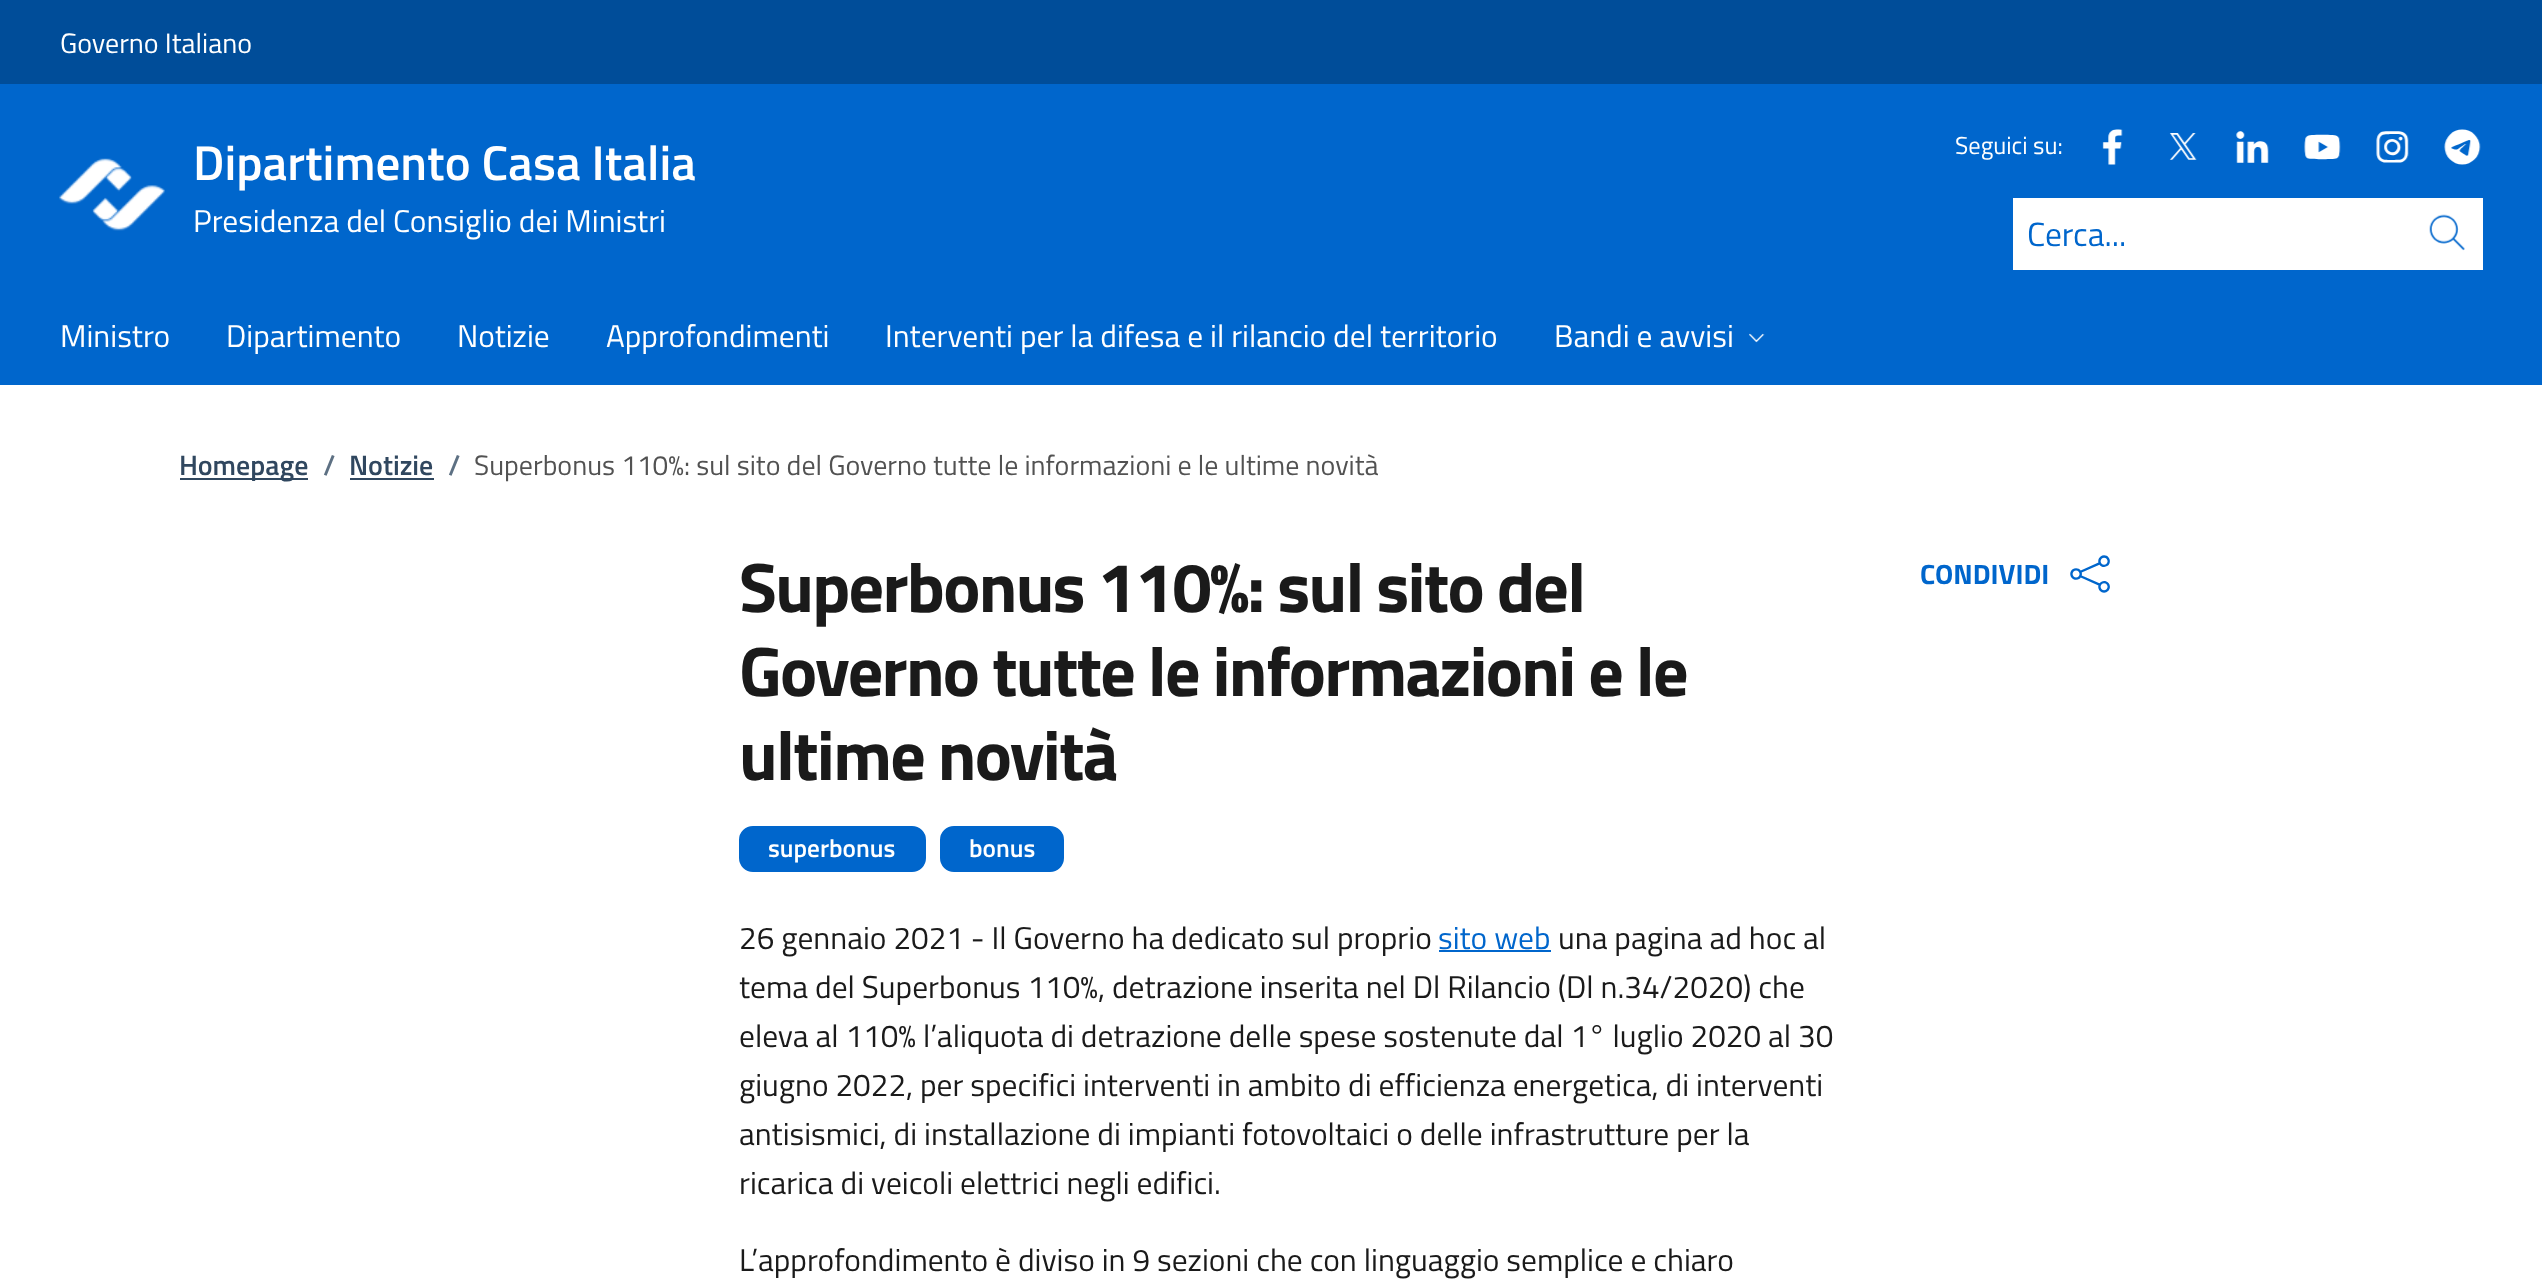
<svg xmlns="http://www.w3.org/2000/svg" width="2542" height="1288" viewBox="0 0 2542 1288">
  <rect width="100%" height="100%" fill="rgb(255,255,255)"/>
  <rect x="0" y="0" width="2542" height="84" fill="rgb(0,77,153)"/>
  <text x="60" y="53" font-family="Titillium Web" font-size="28" fill="rgb(255,255,255)">Governo Italiano</text>
  <rect x="0" y="84" width="2542" height="301" fill="rgb(0,102,204)"/>
  <image x="59" y="158" width="106" height="73" href="pic1.png"/>
  <text x="193" y="180" font-family="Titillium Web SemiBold" font-size="49" font-weight="600" fill="rgb(255,255,255)">Dipartimento Casa Italia</text>
  <text x="193" y="232" font-family="Titillium Web" font-size="31.5" fill="rgb(255,255,255)">Presidenza del Consiglio dei Ministri</text>
  <text x="1955" y="154" font-family="Titillium Web" font-size="24.5" fill="rgb(255,255,255)">Seguici su:</text>
  <image x="2102" y="129" width="21" height="36" href="pic2.png"/>
  <image x="2169" y="133" width="28" height="27" href="pic3.png"/>
  <image x="2236" y="131" width="33" height="32" href="pic4.png"/>
  <image x="2304" y="134" width="37" height="26" href="pic5.png"/>
  <image x="2376" y="131" width="33" height="32" href="pic6.png"/>
  <image x="2444" y="129" width="37" height="36" href="pic7.png"/>
  <rect x="2013" y="198" width="470" height="72" fill="rgb(255,255,255)"/>
  <text x="2027" y="246" font-family="Titillium Web" font-size="33.5" fill="rgb(0,102,204)">Cerca...</text>
  <image x="2429" y="214" width="36" height="37" href="pic8.png"/>
  <g font-family="Titillium Web" font-size="31.5" fill="rgb(255,255,255)">
    <text x="60" y="347">Ministro</text>
    <text x="226" y="347">Dipartimento</text>
    <text x="457" y="347">Notizie</text>
    <text x="606" y="347">Approfondimenti</text>
    <text x="885" y="347">Interventi per la difesa e il rilancio del territorio</text>
    <text x="1554" y="347">Bandi e avvisi</text>
  </g>
  <image x="1749" y="333" width="16" height="10" href="pic9.png"/>
  <rect x="180" y="478" width="128" height="2" fill="rgb(48,71,95)"/>
  <text x="179" y="475" font-family="Titillium Web SemiBold" font-size="28" font-weight="600" fill="rgb(48,71,95)">Homepage</text>
  <text x="323" y="475" font-family="Titillium Web SemiBold" font-size="28" font-weight="600" fill="rgb(93,112,131)">/</text>
  <text x="349" y="475" font-family="Titillium Web SemiBold" font-size="28" font-weight="600" fill="rgb(48,71,95)">Notizie</text>
  <rect x="350" y="478" width="84" height="2" fill="rgb(48,71,95)"/>
  <text x="448" y="475" font-family="Titillium Web SemiBold" font-size="28" font-weight="600" fill="rgb(93,112,131)">/</text>
  <text x="474" y="475" font-family="Titillium Web" font-size="28" fill="rgb(82,82,82)">Superbonus 110%: sul sito del Governo tutte le informazioni e le ultime novità</text>
  <g font-family="Titillium Web" font-size="70" font-weight="bold" letter-spacing="-1.75" fill="rgb(26,26,26)">
    <text>
      <tspan x="739" y="612">Superbonus 110%: sul sito del</tspan>
      <tspan x="739" y="696">Governo tutte le informazioni e le</tspan>
      <tspan x="739" y="780">ultime novità</tspan>
    </text>
  </g>
  <rect x="740" y="827" width="185" height="44" rx="13" fill="rgb(0,102,204)" stroke="rgb(0,102,204)" stroke-width="2"/>
  <text x="768" y="857" font-family="Titillium Web SemiBold" font-size="25.25" font-weight="600" fill="rgb(255,255,255)">superbonus</text>
  <rect x="941" y="827" width="122" height="44" rx="13" fill="rgb(0,102,204)" stroke="rgb(0,102,204)" stroke-width="2"/>
  <text x="969" y="857" font-family="Titillium Web SemiBold" font-size="25.25" font-weight="600" fill="rgb(255,255,255)">bonus</text>
  <text x="739" y="949" font-family="Titillium Web" font-size="31.5" fill="rgb(26,26,26)">26 gennaio 2021 - Il Governo ha dedicato sul proprio</text>
  <text x="1438" y="949" font-family="Titillium Web" font-size="31.5" fill="rgb(0,102,204)">sito web</text>
  <rect x="1439" y="950" width="112" height="2" fill="rgb(0,102,204)"/>
  <g font-family="Titillium Web" font-size="31.5" fill="rgb(26,26,26)">
    <text x="1558" y="949">una pagina ad hoc al</text>
    <text>
      <tspan x="739" y="998">tema del Superbonus 110%, detrazione inserita nel Dl Rilancio (Dl n.34/2020) che</tspan>
      <tspan x="739" y="1047">eleva al 110% l’aliquota di detrazione delle spese sostenute dal 1° luglio 2020 al 30</tspan>
      <tspan x="739" y="1096">giugno 2022, per specifici interventi in ambito di efficienza energetica, di interventi</tspan>
      <tspan x="739" y="1145">antisismici, di installazione di impianti fotovoltaici o delle infrastrutture per la</tspan>
      <tspan x="739" y="1194">ricarica di veicoli elettrici negli edifici.</tspan>
    </text>
    <text x="739" y="1271">L’approfondimento è diviso in 9 sezioni che con linguaggio semplice e chiaro</text>
  </g>
  <text x="1920" y="584" font-family="Titillium Web" font-size="28" font-weight="bold" fill="rgb(0,102,204)">CONDIVIDI</text>
  <image x="2070" y="555" width="40" height="38" href="pic10.png"/>
</svg>
